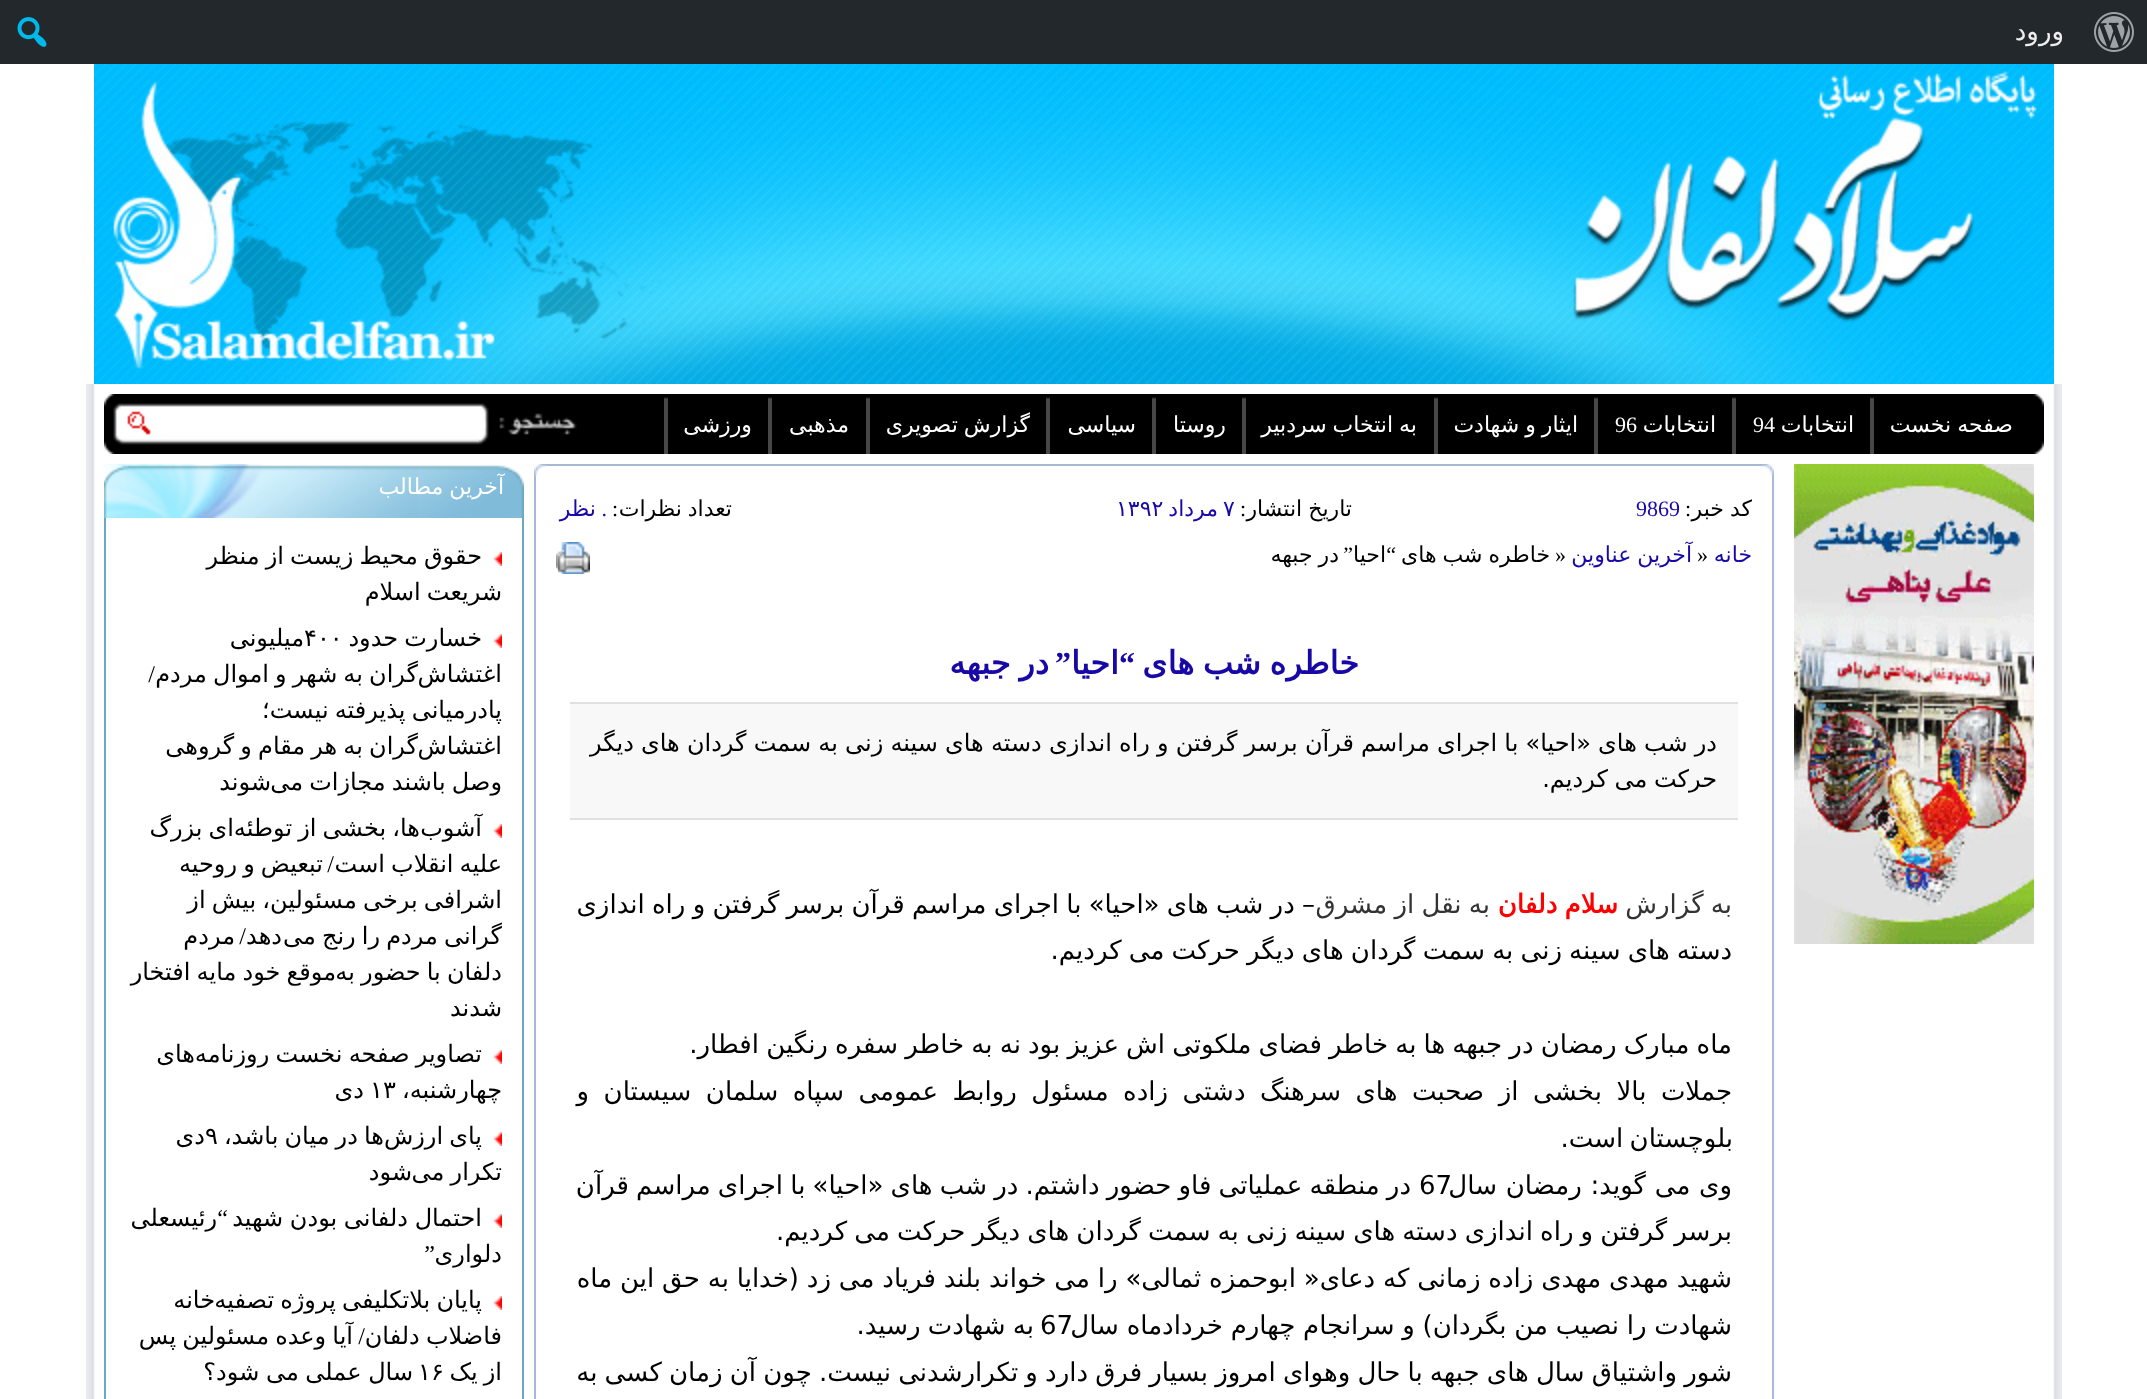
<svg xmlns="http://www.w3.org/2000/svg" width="2147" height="1399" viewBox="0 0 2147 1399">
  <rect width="100%" height="100%" fill="rgb(255,255,255)"/>
  <rect x="0" y="0" width="2147" height="64" fill="rgb(35,40,45)"/>
  <image x="2094" y="12" width="40" height="40" href="pic1.png"/>
  <text x="2064" y="40" font-family="DejaVu Sans" font-size="26" direction="rtl" fill="rgb(238,238,238)">ورود</text>
  <image x="17" y="17" width="30" height="30" href="pic2.png"/>
  <image x="94" y="64" width="1960" height="320" href="pic3.png"/>
  <image x="86" y="384" width="1976" height="1015" href="pic4.png"/>
  <image x="2030" y="394" width="14" height="60" href="pic5.png"/>
  <rect x="584" y="394" width="1446" height="60" fill="rgb(0,0,0)"/>
  <text x="2013" y="432" word-spacing="-1" font-family="DejaVu Sans" font-size="22" direction="rtl" fill="rgb(255,255,255)">صفحه نخست</text>
  <image x="1870" y="394" width="4" height="60" href="pic6.png"/>
  <text x="1854" y="432" font-family="DejaVu Sans" font-size="22" direction="rtl" fill="rgb(255,255,255)">انتخابات</text>
  <text x="1753" y="432" font-family="Liberation Serif" font-size="22" fill="rgb(255,255,255)">94</text>
  <image x="1732" y="394" width="4" height="60" href="pic6.png"/>
  <text x="1716" y="432" font-family="DejaVu Sans" font-size="22" direction="rtl" fill="rgb(255,255,255)">انتخابات</text>
  <text x="1615" y="432" font-family="Liberation Serif" font-size="22" fill="rgb(255,255,255)">96</text>
  <image x="1594" y="394" width="4" height="60" href="pic6.png"/>
  <text x="1578" y="432" word-spacing="-1" font-family="DejaVu Sans" font-size="22" direction="rtl" fill="rgb(255,255,255)">ایثار و شهادت</text>
  <image x="1434" y="394" width="4" height="60" href="pic6.png"/>
  <text x="1417" y="432" word-spacing="-1" font-family="DejaVu Sans" font-size="22" direction="rtl" fill="rgb(255,255,255)">به انتخاب سردبیر</text>
  <image x="1242" y="394" width="4" height="60" href="pic6.png"/>
  <text x="1226" y="432" font-family="DejaVu Sans" font-size="22" direction="rtl" fill="rgb(255,255,255)">روستا</text>
  <image x="1152" y="394" width="4" height="60" href="pic6.png"/>
  <text x="1136" y="432" font-family="DejaVu Sans" font-size="22" direction="rtl" fill="rgb(255,255,255)">سیاسی</text>
  <image x="1046" y="394" width="4" height="60" href="pic6.png"/>
  <text x="1030" y="432" word-spacing="-1" font-family="DejaVu Sans" font-size="22" direction="rtl" fill="rgb(255,255,255)">گزارش تصویری</text>
  <image x="866" y="394" width="4" height="60" href="pic6.png"/>
  <text x="849" y="432" font-family="DejaVu Sans" font-size="22" direction="rtl" fill="rgb(255,255,255)">مذهبی</text>
  <image x="768" y="394" width="4" height="60" href="pic6.png"/>
  <text x="752" y="432" font-family="DejaVu Sans" font-size="22" direction="rtl" fill="rgb(255,255,255)">ورزشی</text>
  <image x="664" y="394" width="4" height="60" href="pic6.png"/>
  <image x="124" y="394" width="460" height="60" href="pic7.png"/>
  <image x="478" y="403" width="106" height="42" href="pic8.png"/>
  <image x="127" y="411" width="24" height="24" href="pic9.png"/>
  <image x="104" y="394" width="20" height="60" href="pic10.png"/>
  <image x="1794" y="464" width="240" height="480" href="pic11.png"/>
  <image x="1762" y="464" width="12" height="12" href="pic12.png"/>
  <rect x="546" y="464" width="1216" height="2" fill="rgb(166,185,215)"/>
  <image x="534" y="464" width="12" height="12" href="pic13.png"/>
  <rect x="1772" y="476" width="2" height="923" fill="rgb(166,185,215)"/>
  <rect x="534" y="476" width="2" height="923" fill="rgb(166,185,215)"/>
  <text x="1752" y="516" word-spacing="-1" font-family="DejaVu Sans" font-size="22" direction="rtl" fill="rgb(0,0,0)">کد خبر</text>
  <text x="1691" y="516" font-family="Liberation Serif" font-size="22" direction="rtl" fill="rgb(0,0,0)">:</text>
  <text x="1636" y="516" font-family="Liberation Serif" font-size="22" fill="rgb(24,9,166)">9869</text>
  <text x="1352" y="516" word-spacing="-1" font-family="DejaVu Sans" font-size="22" direction="rtl" fill="rgb(0,0,0)">تاریخ انتشار</text>
  <text x="1246" y="516" font-family="Liberation Serif" font-size="22" direction="rtl" fill="rgb(0,0,0)">:</text>
  <text x="1223" y="516" font-family="DejaVu Sans" font-size="22" fill="rgb(24,9,166)">۷</text>
  <text x="1218" y="516" font-family="DejaVu Sans" font-size="22" direction="rtl" fill="rgb(24,9,166)">مرداد</text>
  <text x="1116" y="516" font-family="DejaVu Sans" font-size="22" fill="rgb(24,9,166)">۱۳۹۲</text>
  <text x="732" y="516" word-spacing="-1" font-family="DejaVu Sans" font-size="22" direction="rtl" fill="rgb(0,0,0)">تعداد نظرات</text>
  <text x="618" y="516" font-family="Liberation Serif" font-size="22" direction="rtl" fill="rgb(0,0,0)">:</text>
  <text x="607" y="516" font-family="Liberation Serif" font-size="22" direction="rtl" fill="rgb(24,9,166)">.</text>
  <g font-family="DejaVu Sans" font-size="22" direction="rtl" fill="rgb(24,9,166)">
    <text x="596" y="516">نظر</text>
    <text x="1752" y="562">خانه</text>
    <text x="1692" y="562" word-spacing="-1">آخرین عناوین</text>
  </g>
  <text x="1550" y="562" word-spacing="-1" font-family="DejaVu Sans" font-size="22" direction="rtl" fill="rgb(0,0,0)">خاطره شب های</text>
  <text x="1396" y="562" font-family="Liberation Serif" font-size="22" direction="rtl" fill="rgb(0,0,0)">“</text>
  <text x="1386" y="562" font-family="DejaVu Sans" font-size="22" direction="rtl" fill="rgb(0,0,0)">احیا</text>
  <text x="1353" y="562" font-family="Liberation Serif" font-size="22" direction="rtl" fill="rgb(0,0,0)">”</text>
  <g font-family="Liberation Serif" font-size="22" fill="rgb(0,0,0)">
    <text x="1697" y="562">»</text>
    <text x="1555" y="562">»</text>
  </g>
  <text x="1339" y="562" word-spacing="-1" font-family="DejaVu Sans" font-size="22" direction="rtl" fill="rgb(0,0,0)">در جبهه</text>
  <image x="556" y="542" width="33" height="32" href="pic14.png"/>
  <image x="558" y="542" width="32" height="32" href="pic15.png"/>
  <text x="1359" y="674" word-spacing="-1.5" font-family="DejaVu Sans" font-size="32" font-weight="bold" direction="rtl" fill="rgb(24,9,166)">خاطره شب های</text>
  <text x="1135" y="674" font-family="Liberation Serif" font-size="32" font-weight="bold" direction="rtl" fill="rgb(24,9,166)">“</text>
  <text x="1119" y="674" font-family="DejaVu Sans" font-size="32" font-weight="bold" direction="rtl" fill="rgb(24,9,166)">احیا</text>
  <text x="1071" y="674" font-family="Liberation Serif" font-size="32" font-weight="bold" direction="rtl" fill="rgb(24,9,166)">”</text>
  <text x="1049" y="674" word-spacing="-1.5" font-family="DejaVu Sans" font-size="32" font-weight="bold" direction="rtl" fill="rgb(24,9,166)">در جبهه</text>
  <rect x="570" y="704" width="1168" height="114" fill="rgb(248,248,248)"/>
  <rect x="570" y="702" width="1168" height="2" fill="rgb(224,224,224)"/>
  <rect x="570" y="818" width="1168" height="2" fill="rgb(224,224,224)"/>
  <g font-family="DejaVu Sans" font-size="24" direction="rtl" fill="rgb(0,0,0)">
    <text>
      <tspan x="1717" y="751" word-spacing="-0.5">در شب های «احیا» با اجرای مراسم قرآن برسر گرفتن و راه اندازی دسته های سینه زنی به سمت گردان های دیگر</tspan>
      <tspan x="1717" y="787" word-spacing="-1">حرکت می کردیم.</tspan>
    </text>
  </g>
  <text x="1732" y="913" word-spacing="-1" font-family="DejaVu Sans" font-size="26" direction="rtl" fill="rgb(51,51,51)">به گزارش</text>
  <text x="1618" y="913" word-spacing="-1" font-family="DejaVu Sans" font-size="26" font-weight="bold" direction="rtl" fill="rgb(255,0,0)">سلام دلفان</text>
  <text x="1490" y="913" word-spacing="-1" font-family="DejaVu Sans" font-size="26" direction="rtl" fill="rgb(51,51,51)">به نقل از مشرق</text>
  <g font-family="DejaVu Sans" font-size="26" direction="rtl" fill="rgb(0,0,0)">
    <text x="1315" y="913" word-spacing="-1">– در شب های «احیا» با اجرای مراسم قرآن برسر گرفتن و راه اندازی</text>
    <text x="1732" y="959" word-spacing="-1.1">دسته های سینه زنی به سمت گردان های دیگر حرکت می کردیم.</text>
    <text>
      <tspan x="1732" y="1053" word-spacing="-1.1">ماه مبارک رمضان در جبهه ها به خاطر فضای ملکوتی اش عزیز بود نه به خاطر سفره رنگین افطار.</tspan>
      <tspan x="1732" y="1100" word-spacing="6.25">جملات بالا بخشی از صحبت های سرهنگ دشتی زاده مسئول روابط عمومی سپاه سلمان سیستان و</tspan>
    </text>
    <text x="1733" y="1147" word-spacing="-2">بلوچستان است.</text>
    <text x="1411" y="1194" word-spacing="-1.1">در منطقه عملیاتی فاو حضور داشتم. در شب های «احیا» با اجرای مراسم قرآن</text>
  </g>
  <text x="1419" y="1194" font-family="DejaVu Sans" font-size="26" fill="rgb(0,0,0)">67</text>
  <g font-family="DejaVu Sans" font-size="26" direction="rtl" fill="rgb(0,0,0)">
    <text>
      <tspan x="1732" y="1194" word-spacing="0.5">وی می گوید: رمضان سال</tspan>
      <tspan x="1732" y="1240" word-spacing="-1.1">برسر گرفتن و راه اندازی دسته های سینه زنی به سمت گردان های دیگر حرکت می کردیم.</tspan>
      <tspan x="1732" y="1287" word-spacing="-0.4">شهید مهدی مهدی زاده زمانی که دعای« ابوحمزه ثمالی» را می خواند بلند فریاد می زد (خدایا به حق این ماه</tspan>
    </text>
  </g>
  <text x="1040" y="1334" font-family="DejaVu Sans" font-size="26" fill="rgb(0,0,0)">67</text>
  <g font-family="DejaVu Sans" font-size="26" direction="rtl" fill="rgb(0,0,0)">
    <text x="1732" y="1334" word-spacing="-0.5">شهادت را نصیب من بگردان) و سرانجام چهارم خردادماه سال</text>
    <text x="1034" y="1334" word-spacing="-1">به شهادت رسید.</text>
    <text x="1732" y="1381" word-spacing="-1.1">شور واشتیاق سال های جبهه با حال وهوای امروز بسیار فرق دارد و تکرارشدنی نیست. چون آن زمان کسی به</text>
  </g>
  <image x="104" y="464" width="420" height="54" href="pic16.png"/>
  <text x="504" y="494" word-spacing="-1" font-family="DejaVu Sans" font-size="22" direction="rtl" fill="rgb(255,255,255)">آخرین مطالب</text>
  <rect x="522" y="518" width="2" height="881" fill="rgb(107,169,190)"/>
  <rect x="104" y="518" width="2" height="881" fill="rgb(107,169,190)"/>
  <image x="494" y="552" width="8" height="14" href="pic17.png"/>
  <g font-family="DejaVu Sans" font-size="24" direction="rtl" fill="rgb(0,0,0)">
    <text x="482" y="564" word-spacing="-1.5">حقوق محیط زیست از منظر</text>
    <text x="502" y="600" word-spacing="-1.5">شریعت اسلام</text>
  </g>
  <image x="494" y="634" width="8" height="14" href="pic17.png"/>
  <text x="482" y="646" word-spacing="-1.5" font-family="DejaVu Sans" font-size="24" direction="rtl" fill="rgb(0,0,0)">خسارت حدود</text>
  <text x="304" y="646" font-family="DejaVu Sans" font-size="24" fill="rgb(0,0,0)">۴۰۰</text>
  <g font-family="DejaVu Sans" font-size="24" direction="rtl" fill="rgb(0,0,0)">
    <text x="304" y="646">میلیونی</text>
    <text x="418" y="682" word-spacing="-1.5">گران به شهر و اموال مردم</text>
    <text x="502" y="682">اغتشاش</text>
  </g>
  <text x="155" y="682" font-family="Liberation Serif" font-size="24" direction="rtl" fill="rgb(0,0,0)">/</text>
  <g font-family="DejaVu Sans" font-size="24" direction="rtl" fill="rgb(0,0,0)">
    <text x="502" y="718" word-spacing="-1.5">پادرمیانی پذیرفته نیست؛</text>
    <text x="418" y="754" word-spacing="-1.5">گران به هر مقام و گروهی</text>
    <text>
      <tspan x="502" y="754">اغتشاش</tspan>
      <tspan x="502" y="790" word-spacing="-1.5">وصل باشند مجازات می</tspan>
    </text>
    <text x="271" y="790">شوند</text>
  </g>
  <image x="494" y="824" width="8" height="14" href="pic17.png"/>
  <g font-family="DejaVu Sans" font-size="24" direction="rtl" fill="rgb(0,0,0)">
    <text x="420" y="836" word-spacing="-1.5">ها، بخشی از توطئه</text>
    <text x="482" y="836">آشوب</text>
    <text x="234" y="836" word-spacing="-1.5">ای بزرگ</text>
    <text x="502" y="872" word-spacing="-1.5">علیه انقلاب است</text>
  </g>
  <text x="334" y="872" font-family="Liberation Serif" font-size="24" direction="rtl" fill="rgb(0,0,0)">/</text>
  <g font-family="DejaVu Sans" font-size="24" direction="rtl" fill="rgb(0,0,0)">
    <text x="323" y="872" word-spacing="-1.5">تبعیض و روحیه</text>
    <text>
      <tspan x="502" y="908" word-spacing="-1.5">اشرافی برخی مسئولین، بیش از</tspan>
      <tspan x="502" y="944" word-spacing="-1.5">گرانی مردم را رنج می</tspan>
    </text>
    <text x="282" y="944">دهد</text>
  </g>
  <text x="246" y="944" font-family="Liberation Serif" font-size="24" direction="rtl" fill="rgb(0,0,0)">/</text>
  <g font-family="DejaVu Sans" font-size="24" direction="rtl" fill="rgb(0,0,0)">
    <text x="235" y="944">مردم</text>
    <text x="336" y="980" word-spacing="-1.5">موقع خود مایه افتخار</text>
    <text>
      <tspan x="502" y="980" word-spacing="-1.5">دلفان با حضور به</tspan>
      <tspan x="502" y="1016">شدند</tspan>
    </text>
  </g>
  <image x="494" y="1050" width="8" height="14" href="pic17.png"/>
  <g font-family="DejaVu Sans" font-size="24" direction="rtl" fill="rgb(0,0,0)">
    <text x="482" y="1062" word-spacing="-1.5">تصاویر صفحه نخست روزنامه</text>
    <text x="195" y="1062">های</text>
    <text x="502" y="1098">چهارشنبه،</text>
  </g>
  <text x="370" y="1098" font-family="DejaVu Sans" font-size="24" fill="rgb(0,0,0)">۱۳</text>
  <text x="364" y="1098" font-family="DejaVu Sans" font-size="24" direction="rtl" fill="rgb(0,0,0)">دی</text>
  <image x="494" y="1132" width="8" height="14" href="pic17.png"/>
  <g font-family="DejaVu Sans" font-size="24" direction="rtl" fill="rgb(0,0,0)">
    <text x="384" y="1144" word-spacing="-1.5">ها در میان باشد،</text>
    <text x="482" y="1144" word-spacing="-1.5">پای ارزش</text>
  </g>
  <text x="205" y="1144" font-family="DejaVu Sans" font-size="24" fill="rgb(0,0,0)">۹</text>
  <g font-family="DejaVu Sans" font-size="24" direction="rtl" fill="rgb(0,0,0)">
    <text x="205" y="1144">دی</text>
    <text x="502" y="1180" word-spacing="-1.5">تکرار می</text>
    <text x="412" y="1180">شود</text>
  </g>
  <image x="494" y="1214" width="8" height="14" href="pic17.png"/>
  <text x="482" y="1226" word-spacing="-1" font-family="DejaVu Sans" font-size="24" direction="rtl" fill="rgb(0,0,0)">احتمال دلفانی بودن شهید</text>
  <text x="228" y="1226" font-family="Liberation Serif" font-size="24" direction="rtl" fill="rgb(0,0,0)">“</text>
  <g font-family="DejaVu Sans" font-size="24" direction="rtl" fill="rgb(0,0,0)">
    <text x="217" y="1226">رئیسعلی</text>
    <text x="502" y="1262">دلواری</text>
  </g>
  <text x="435" y="1262" font-family="Liberation Serif" font-size="24" direction="rtl" fill="rgb(0,0,0)">”</text>
  <image x="494" y="1296" width="8" height="14" href="pic17.png"/>
  <g font-family="DejaVu Sans" font-size="24" direction="rtl" fill="rgb(0,0,0)">
    <text x="482" y="1308" word-spacing="-1.5">پایان بلاتکلیفی پروژه تصفیه</text>
    <text x="215" y="1308">خانه</text>
    <text x="502" y="1344" word-spacing="-1.5">فاضلاب دلفان</text>
    <text x="353" y="1344" word-spacing="-1.5">آیا وعده مسئولین پس</text>
  </g>
  <text x="365" y="1344" font-family="Liberation Serif" font-size="24" direction="rtl" fill="rgb(0,0,0)">/</text>
  <text x="502" y="1380" word-spacing="-1.5" font-family="DejaVu Sans" font-size="24" direction="rtl" fill="rgb(0,0,0)">از یک</text>
  <text x="418" y="1380" font-family="DejaVu Sans" font-size="24" fill="rgb(0,0,0)">۱۶</text>
  <text x="413" y="1380" word-spacing="-1" font-family="DejaVu Sans" font-size="24" direction="rtl" fill="rgb(0,0,0)">سال عملی می شود؟</text>
</svg>
